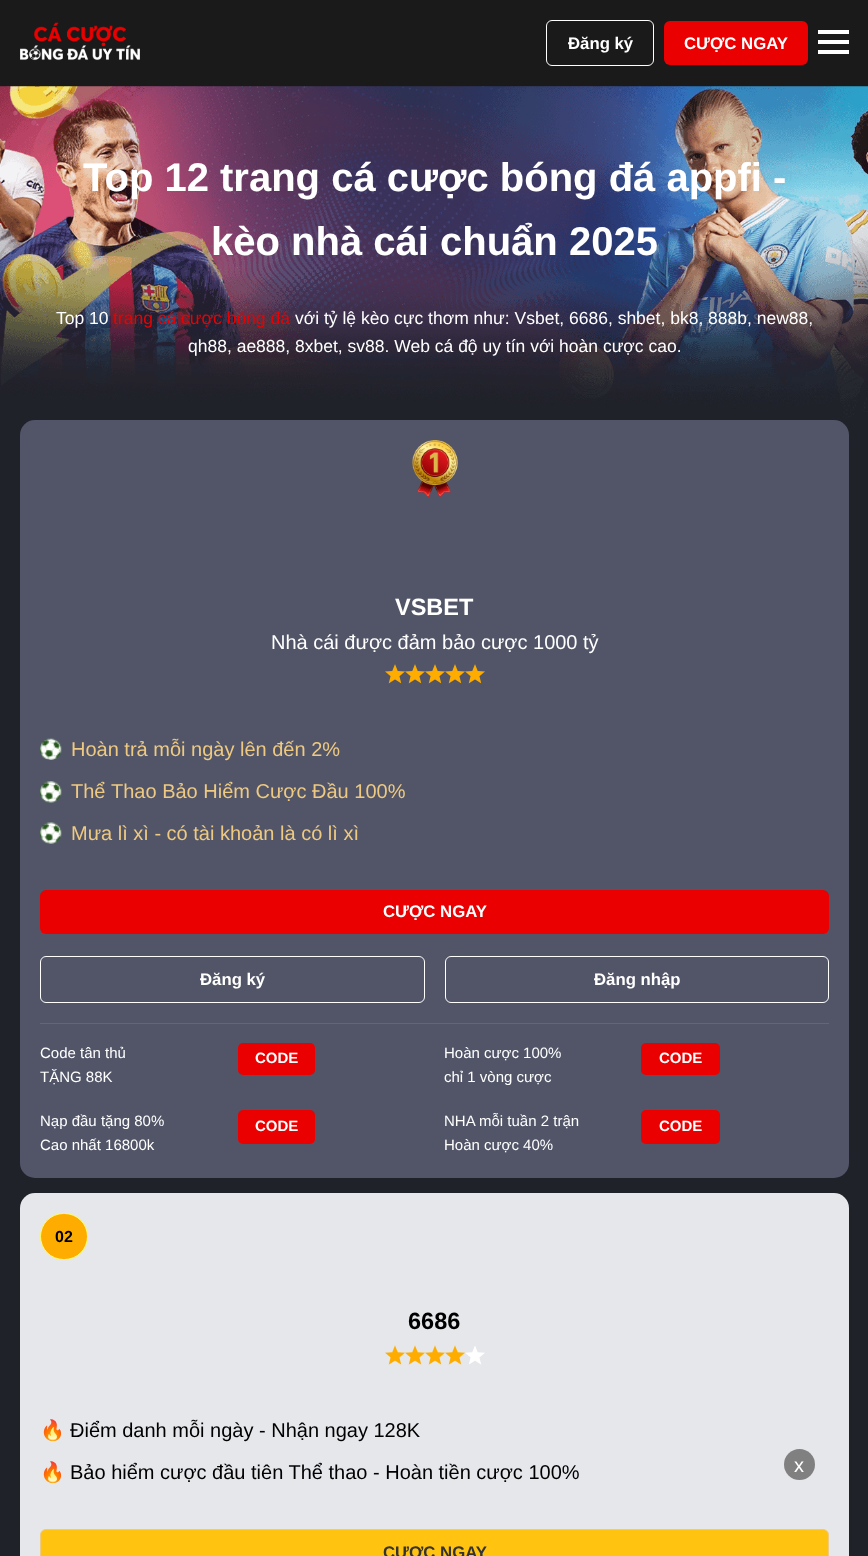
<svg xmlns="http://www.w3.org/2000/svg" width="868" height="1556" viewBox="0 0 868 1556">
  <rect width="100%" height="100%" fill="rgb(32,34,42)"/>
  <rect x="0" y="0" width="868" height="86" fill="rgb(26,26,26)"/>
  <image x="20" y="22" width="120" height="39" href="pic1.png"/>
  <rect x="546.5" y="20.5" width="107" height="45" rx="5.5" fill="none" stroke="rgb(255,255,255)"/>
  <text x="568" y="49" font-family="Liberation Sans" font-size="16.75" font-weight="bold" fill="rgb(255,255,255)">Đăng ký</text>
  <rect x="664" y="21" width="144" height="44" rx="6" fill="rgb(234,0,0)"/>
  <text x="684" y="49" font-family="Liberation Sans" font-size="16.75" font-weight="bold" fill="rgb(255,255,255)">CƯỢC NGAY</text>
  <rect x="818" y="30" width="31" height="4" fill="rgb(255,255,255)"/>
  <rect x="818" y="40" width="31" height="4" fill="rgb(255,255,255)"/>
  <rect x="818" y="50" width="31" height="4" fill="rgb(255,255,255)"/>
  <image x="0" y="86" width="868" height="331" href="pic2.png"/>
  <g font-family="Liberation Sans" font-size="40" font-weight="bold" fill="rgb(255,255,255)">
    <text x="83" y="191">Top 12 trang cá cược bóng đá appfi -</text>
    <text x="211" y="255">kèo nhà cái chuẩn 2025</text>
  </g>
  <text x="56" y="324" font-family="Liberation Sans" font-size="17.5" fill="rgb(255,255,255)">Top 10</text>
  <text x="113" y="324" font-family="Liberation Sans" font-size="17.5" fill="rgb(234,0,0)">trang cá cược bóng đá</text>
  <g font-family="Liberation Sans" font-size="17.5" fill="rgb(255,255,255)">
    <text x="295" y="324">với tỷ lệ kèo cực thơm như: Vsbet, 6686, shbet, bk8, 888b, new88,</text>
    <text x="188" y="352">qh88, ae888, 8xbet, sv88. Web cá độ uy tín với hoàn cược cao.</text>
  </g>
  <rect x="20" y="420" width="829" height="758" rx="15" fill="rgb(81,85,103)"/>
  <image x="412" y="440" width="46" height="58" href="pic3.png"/>
  <text x="395" y="615" font-family="Liberation Sans" font-size="23.5" font-weight="bold" fill="rgb(255,255,255)">VSBET</text>
  <text x="271" y="649" font-family="Liberation Sans" font-size="20" fill="rgb(255,255,255)">Nhà cái được đảm bảo cược 1000 tỷ</text>
  <image x="385" y="664" width="20" height="20" href="pic4.png"/>
  <image x="405" y="664" width="20" height="20" href="pic4.png"/>
  <image x="425" y="664" width="20" height="20" href="pic4.png"/>
  <image x="445" y="664" width="20" height="20" href="pic4.png"/>
  <image x="465" y="664" width="20" height="20" href="pic4.png"/>
  <image x="40" y="738" width="22" height="22" href="pic5.png"/>
  <text x="71" y="756" font-family="Liberation Sans" font-size="20" fill="rgb(238,201,130)">Hoàn trả mỗi ngày lên đến 2%</text>
  <image x="40" y="781" width="22" height="22" href="pic6.png"/>
  <g font-family="Liberation Sans" font-size="20" fill="rgb(238,201,130)">
    <text x="71" y="798">Thể</text>
    <text x="111" y="798">Thao Bảo Hiểm Cược Đầu 100%</text>
  </g>
  <image x="40" y="822" width="22" height="22" href="pic7.png"/>
  <text x="71" y="840" font-family="Liberation Sans" font-size="20" fill="rgb(238,201,130)">Mưa lì xì - có tài khoản là có lì xì</text>
  <rect x="40" y="890" width="789" height="44" rx="6" fill="rgb(234,0,0)"/>
  <text x="383" y="917" font-family="Liberation Sans" font-size="16.75" font-weight="bold" fill="rgb(255,255,255)">CƯỢC NGAY</text>
  <rect x="40.5" y="956.5" width="384" height="46" rx="5.5" fill="none" stroke="rgb(255,255,255)"/>
  <text x="200" y="985" font-family="Liberation Sans" font-size="16.75" font-weight="bold" fill="rgb(255,255,255)">Đăng ký</text>
  <rect x="445.5" y="956.5" width="383" height="46" rx="5.5" fill="none" stroke="rgb(255,255,255)"/>
  <text x="594" y="985" font-family="Liberation Sans" font-size="16.75" font-weight="bold" fill="rgb(255,255,255)">Đăng nhập</text>
  <rect x="40" y="1023" width="789" height="1" fill="rgb(98,102,118)"/>
  <g font-family="Liberation Sans" font-size="15" fill="rgb(255,255,255)">
    <text>
      <tspan x="40" y="1058">Code tân thủ</tspan>
      <tspan x="40" y="1082">TẶNG 88K</tspan>
    </text>
  </g>
  <rect x="238" y="1043" width="77" height="32" rx="5" fill="rgb(234,0,0)"/>
  <text x="255" y="1063" font-family="Liberation Sans" font-size="15" font-weight="bold" fill="rgb(255,255,255)">CODE</text>
  <g font-family="Liberation Sans" font-size="15" fill="rgb(255,255,255)">
    <text>
      <tspan x="444" y="1058">Hoàn cược 100%</tspan>
      <tspan x="444" y="1082">chỉ 1 vòng cược</tspan>
    </text>
  </g>
  <rect x="641" y="1043" width="79" height="32" rx="5" fill="rgb(234,0,0)"/>
  <text x="659" y="1063" font-family="Liberation Sans" font-size="15" font-weight="bold" fill="rgb(255,255,255)">CODE</text>
  <g font-family="Liberation Sans" font-size="15" fill="rgb(255,255,255)">
    <text>
      <tspan x="40" y="1126">Nạp đầu tặng 80%</tspan>
      <tspan x="40" y="1150">Cao nhất 16800k</tspan>
    </text>
  </g>
  <rect x="238" y="1110" width="77" height="34" rx="5" fill="rgb(234,0,0)"/>
  <text x="255" y="1131" font-family="Liberation Sans" font-size="15" font-weight="bold" fill="rgb(255,255,255)">CODE</text>
  <g font-family="Liberation Sans" font-size="15" fill="rgb(255,255,255)">
    <text>
      <tspan x="444" y="1126">NHA mỗi tuần 2 trận</tspan>
      <tspan x="444" y="1150">Hoàn cược 40%</tspan>
    </text>
  </g>
  <rect x="641" y="1110" width="79" height="34" rx="5" fill="rgb(234,0,0)"/>
  <text x="659" y="1131" font-family="Liberation Sans" font-size="15" font-weight="bold" fill="rgb(255,255,255)">CODE</text>
  <rect x="20" y="1193" width="829" height="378" rx="15" fill="rgb(229,231,235)"/>
  <rect x="40.5" y="1213.5" width="47" height="46" rx="23" fill="rgb(254,173,0)" stroke="rgb(255,255,101)"/>
  <text x="55" y="1242" font-family="Liberation Sans" font-size="16" font-weight="bold" fill="rgb(0,0,0)">02</text>
  <text x="408" y="1329" font-family="Liberation Sans" font-size="23.5" font-weight="bold" fill="rgb(0,0,0)">6686</text>
  <image x="385" y="1345" width="20" height="20" href="pic8.png"/>
  <image x="405" y="1345" width="20" height="20" href="pic8.png"/>
  <image x="425" y="1345" width="20" height="20" href="pic8.png"/>
  <image x="445" y="1345" width="20" height="20" href="pic8.png"/>
  <image x="465" y="1346" width="20" height="19" href="pic9.png"/>
  <text x="40" y="1437" font-family="Noto Color Emoji" font-size="20" fill="rgb(0,0,0)">🔥</text>
  <text x="70" y="1437" font-family="Liberation Sans" font-size="20" fill="rgb(0,0,0)">Điểm danh mỗi ngày - Nhận ngay 128K</text>
  <text x="40" y="1479" font-family="Noto Color Emoji" font-size="20" fill="rgb(0,0,0)">🔥</text>
  <text x="70" y="1479" font-family="Liberation Sans" font-size="20" fill="rgb(0,0,0)">Bảo hiểm cược đầu tiên Thể thao - Hoàn tiền cược 100%</text>
  <rect x="40.5" y="1529.5" width="788" height="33" rx="5.5" fill="rgb(255,195,16)" stroke="rgb(238,201,130)"/>
  <text x="383" y="1558" font-family="Liberation Sans" font-size="16.75" font-weight="bold" fill="rgb(51,51,51)">CƯỢC NGAY</text>
  <circle cx="799.5" cy="1464.5" r="15.5" fill="rgb(128,128,128)"/>
  <text x="794" y="1472" font-family="Liberation Sans" font-size="20" fill="rgb(255,255,255)">x</text>
</svg>
